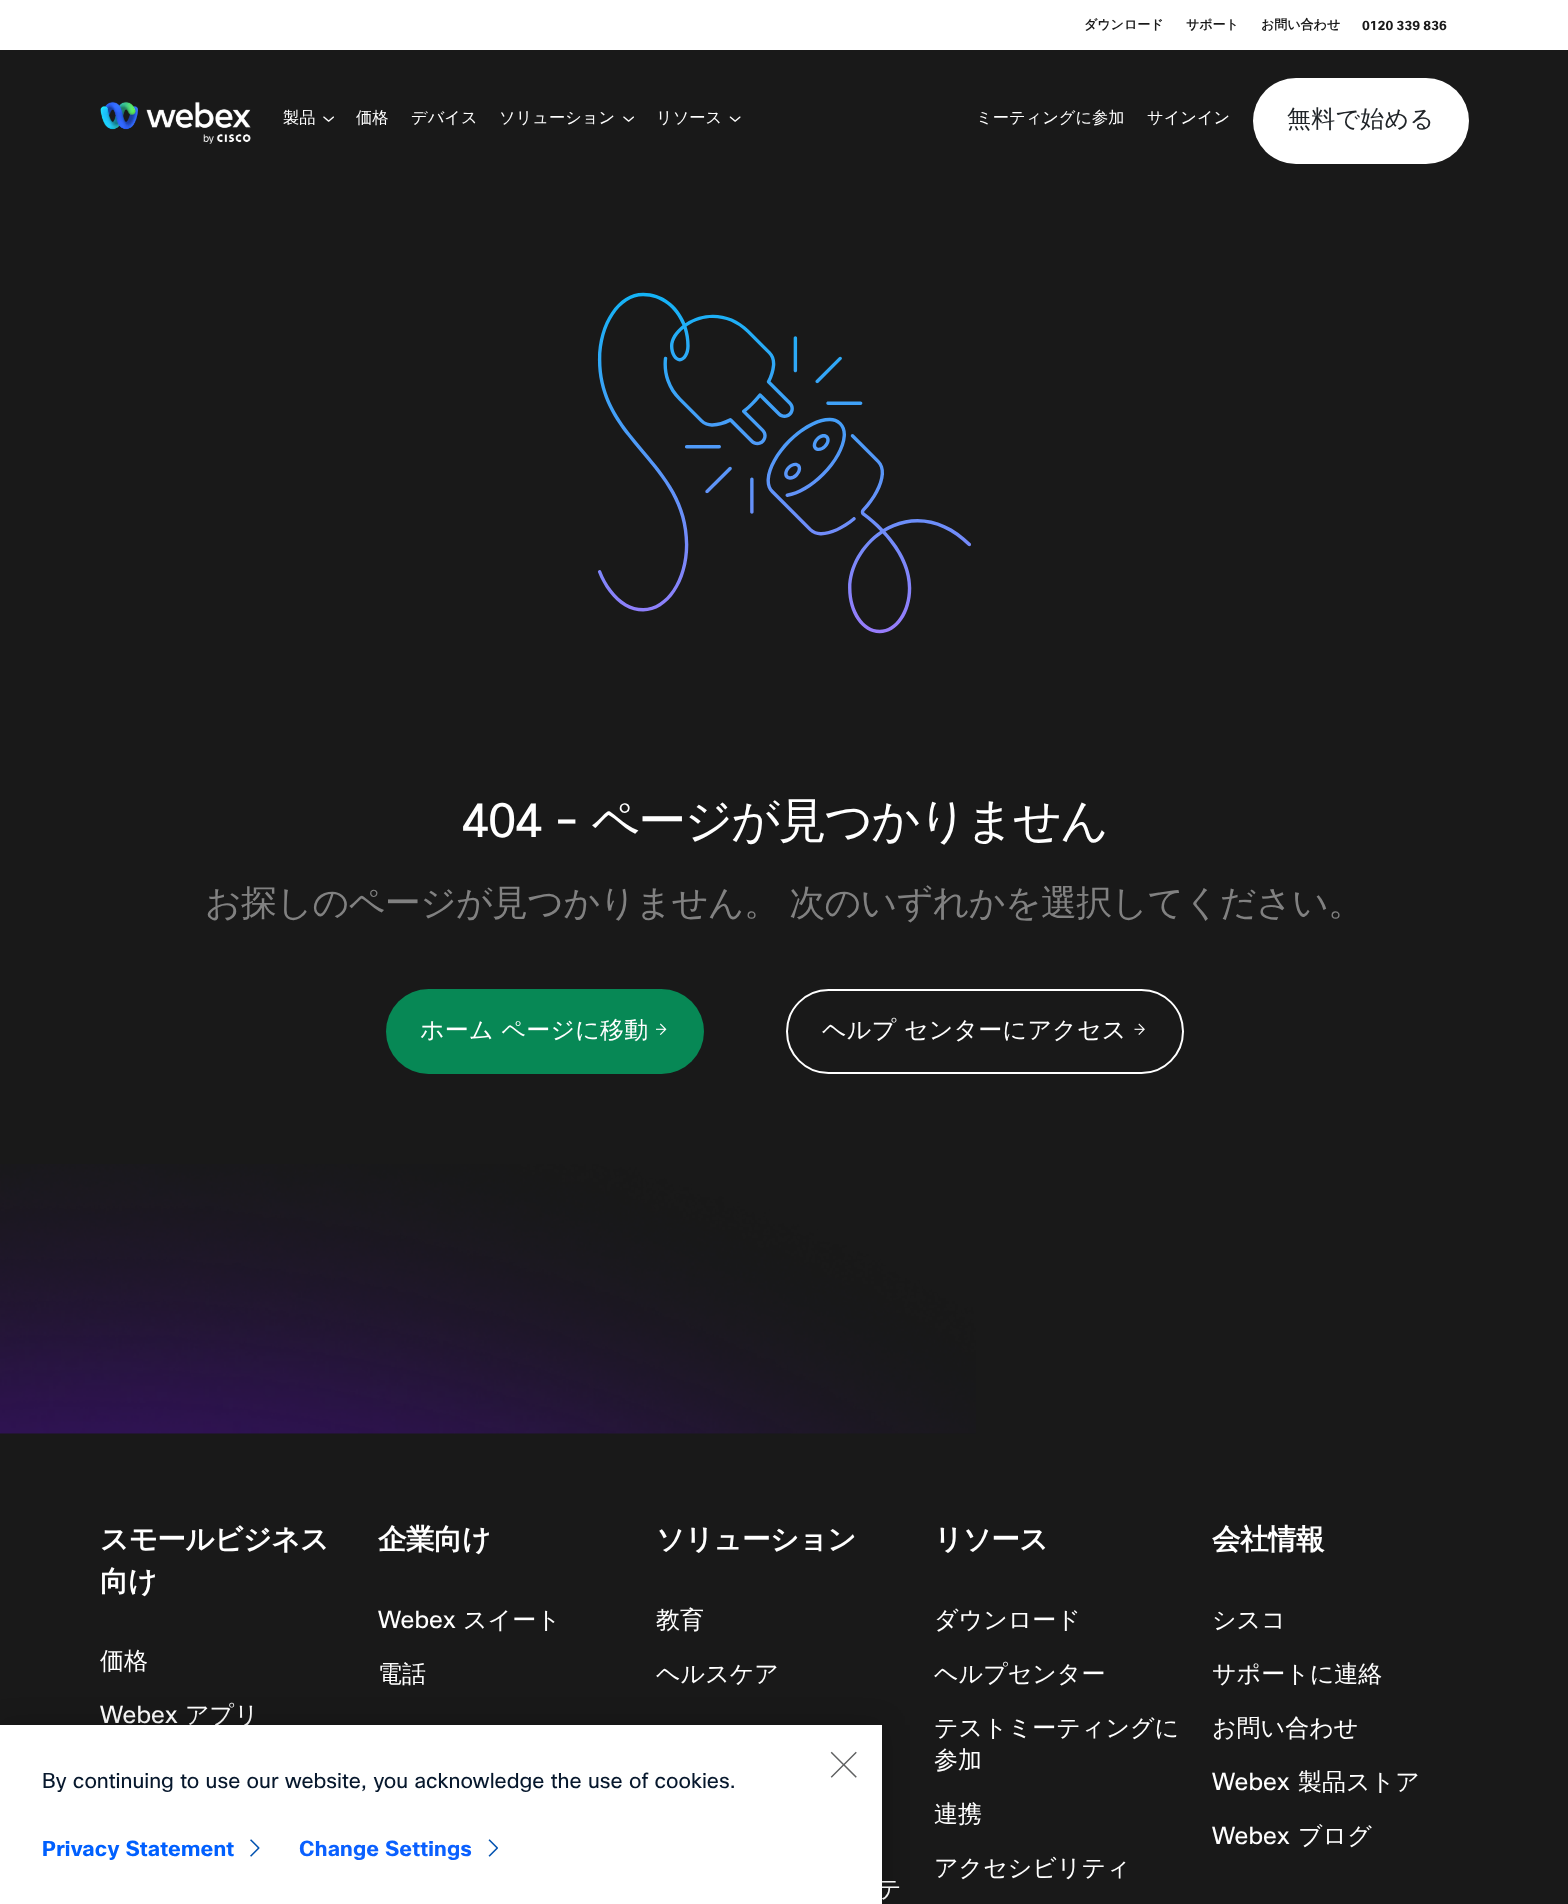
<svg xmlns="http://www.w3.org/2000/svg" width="1568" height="1904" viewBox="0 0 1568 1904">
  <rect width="100%" height="100%" fill="rgb(25,25,25)"/>
  <rect x="0" y="0" width="1568" height="50" fill="rgb(255,255,255)"/>
  <g font-family="WenQuanYi Zen Hei" font-size="13" font-weight="bold" fill="rgb(25,25,25)">
    <text x="1084" y="29">ダウンロード</text>
    <text x="1186" y="29">サポート</text>
    <text x="1261" y="29">お問い合わせ</text>
  </g>
  <text x="1362" y="30" font-family="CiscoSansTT" font-size="13" font-weight="bold" fill="rgb(25,25,25)">0120 339 836</text>
  <image x="100" y="101" width="151" height="43" href="pic1.png"/>
  <text x="283" y="123" font-family="WenQuanYi Zen Hei" font-size="16.25" font-weight="500" fill="rgb(255,255,255)">製品</text>
  <image x="323" y="116" width="11" height="6" href="pic2.png"/>
  <g font-family="WenQuanYi Zen Hei" font-size="16.25" font-weight="500" fill="rgb(255,255,255)">
    <text x="356" y="123">価格</text>
    <text x="411" y="123">デバイス</text>
    <text x="499" y="123">ソリューション</text>
  </g>
  <image x="623" y="116" width="11" height="6" href="pic2.png"/>
  <text x="656" y="123" font-family="WenQuanYi Zen Hei" font-size="16.25" font-weight="500" fill="rgb(255,255,255)">リソース</text>
  <image x="729" y="116" width="12" height="6" href="pic3.png"/>
  <g font-family="WenQuanYi Zen Hei" font-size="16.25" font-weight="500" fill="rgb(255,255,255)">
    <text x="976" y="123">ミーティングに参加</text>
    <text x="1147" y="123">サインイン</text>
  </g>
  <rect x="1253" y="78" width="216" height="86" rx="43" fill="rgb(255,255,255)"/>
  <text x="1287" y="127" font-family="WenQuanYi Zen Hei" font-size="24" font-weight="500" letter-spacing="0.25" fill="rgb(33,37,41)">無料で始める</text>
  <image x="597" y="292" width="374" height="342" href="pic4.png"/>
  <text x="461" y="837" font-family="CiscoSansTT" font-size="48" letter-spacing="-2" fill="rgb(255,255,255)">404 -</text>
  <text x="591" y="837" font-family="WenQuanYi Zen Hei" font-size="48" font-weight="500" letter-spacing="-2" fill="rgb(255,255,255)">ページが見つかりません</text>
  <text x="205" y="915" font-family="WenQuanYi Zen Hei" font-size="36" font-weight="500" letter-spacing="-0.75" fill="rgb(129,129,129)">お探しのページが見つかりません。 次のいずれかを選択してください。</text>
  <rect x="386" y="989" width="318" height="85" rx="42.5" fill="rgb(7,136,85)"/>
  <text x="420" y="1038" font-family="WenQuanYi Zen Hei" font-size="24" font-weight="500" letter-spacing="0.25" fill="rgb(255,255,255)">ホーム ページに移動</text>
  <image x="656" y="1023" width="11" height="12" href="pic5.png"/>
  <rect x="787" y="990" width="396" height="83" rx="41.5" fill="none" stroke="rgb(255,255,255)" stroke-width="2"/>
  <text x="822" y="1038" font-family="WenQuanYi Zen Hei" font-size="24" font-weight="500" letter-spacing="0.25" fill="rgb(255,255,255)">ヘルプ センターにアクセス</text>
  <image x="1134" y="1023" width="11" height="12" href="pic6.png"/>
  <image x="0" y="1164" width="976" height="270" href="pic7.png"/>
  <g font-family="WenQuanYi Zen Hei" font-size="28.5" font-weight="bold" letter-spacing="-0.5" fill="rgb(255,255,255)">
    <text>
      <tspan x="100" y="1549">スモールビジネス</tspan>
      <tspan x="100" y="1591">向け</tspan>
    </text>
  </g>
  <text x="100" y="1669" font-family="WenQuanYi Zen Hei" font-size="24" font-weight="500" fill="rgb(255,255,255)">価格</text>
  <text x="100" y="1723" font-family="CiscoSansTT" font-size="24" fill="rgb(255,255,255)">Webex</text>
  <text x="185" y="1723" font-family="WenQuanYi Zen Hei" font-size="24" font-weight="500" fill="rgb(255,255,255)">アプリ</text>
  <text x="378" y="1549" font-family="WenQuanYi Zen Hei" font-size="28.5" font-weight="bold" letter-spacing="-0.5" fill="rgb(255,255,255)">企業向け</text>
  <text x="378" y="1628" font-family="CiscoSansTT" font-size="24" fill="rgb(255,255,255)">Webex</text>
  <g font-family="WenQuanYi Zen Hei" font-size="24" font-weight="500" fill="rgb(255,255,255)">
    <text x="463" y="1628">スイート</text>
    <text x="378" y="1682">電話</text>
  </g>
  <text x="656" y="1549" font-family="WenQuanYi Zen Hei" font-size="28.5" font-weight="bold" letter-spacing="-0.5" fill="rgb(255,255,255)">ソリューション</text>
  <g font-family="WenQuanYi Zen Hei" font-size="24" font-weight="500" fill="rgb(255,255,255)">
    <text x="656" y="1628">教育</text>
    <text x="656" y="1682">ヘルスケア</text>
    <text x="877" y="1897">テ</text>
  </g>
  <text x="934" y="1549" font-family="WenQuanYi Zen Hei" font-size="28.5" font-weight="bold" letter-spacing="-0.5" fill="rgb(255,255,255)">リソース</text>
  <g font-family="WenQuanYi Zen Hei" font-size="24" font-weight="500" fill="rgb(255,255,255)">
    <text x="934" y="1628">ダウンロード</text>
    <text x="934" y="1682">ヘルプセンター</text>
    <text>
      <tspan x="934" y="1736">テストミーティングに</tspan>
      <tspan x="934" y="1768">参加</tspan>
    </text>
    <text x="934" y="1822">連携</text>
    <text x="934" y="1876">アクセシビリティ</text>
  </g>
  <text x="1212" y="1549" font-family="WenQuanYi Zen Hei" font-size="28.5" font-weight="bold" letter-spacing="-0.5" fill="rgb(255,255,255)">会社情報</text>
  <g font-family="WenQuanYi Zen Hei" font-size="24" font-weight="500" fill="rgb(255,255,255)">
    <text x="1212" y="1628">シスコ</text>
    <text x="1212" y="1682">サポートに連絡</text>
    <text x="1212" y="1736">お問い合わせ</text>
  </g>
  <text x="1212" y="1790" font-family="CiscoSansTT" font-size="24" fill="rgb(255,255,255)">Webex</text>
  <text x="1298" y="1790" font-family="WenQuanYi Zen Hei" font-size="24" font-weight="500" fill="rgb(255,255,255)">製品ストア</text>
  <text x="1212" y="1844" font-family="CiscoSansTT" font-size="24" fill="rgb(255,255,255)">Webex</text>
  <text x="1298" y="1844" font-family="WenQuanYi Zen Hei" font-size="24" font-weight="500" fill="rgb(255,255,255)">ブログ</text>
  <rect x="0" y="1725" width="882" height="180" fill="rgba(0,0,0,0.2)" filter="blur(13.5px)"/>
  <rect x="0" y="1725" width="882" height="179" fill="rgb(255,255,255)"/>
  <image x="830" y="1751" width="27" height="27" href="pic8.png"/>
  <text x="42" y="1788" font-family="CiscoSansTT" font-size="21" fill="rgb(7,24,45)">By continuing to use our website, you acknowledge the use of cookies.</text>
  <text x="42" y="1856" font-family="CiscoSansTT" font-size="21" font-weight="bold" letter-spacing="0.25" fill="rgb(0,96,255)">Privacy Statement</text>
  <image x="250" y="1839" width="10" height="18" href="pic9.png"/>
  <text x="299" y="1856" font-family="CiscoSansTT" font-size="21" font-weight="bold" letter-spacing="0.25" fill="rgb(10,96,255)">Change Settings</text>
  <image x="488" y="1839" width="10" height="18" href="pic10.png"/>
</svg>
